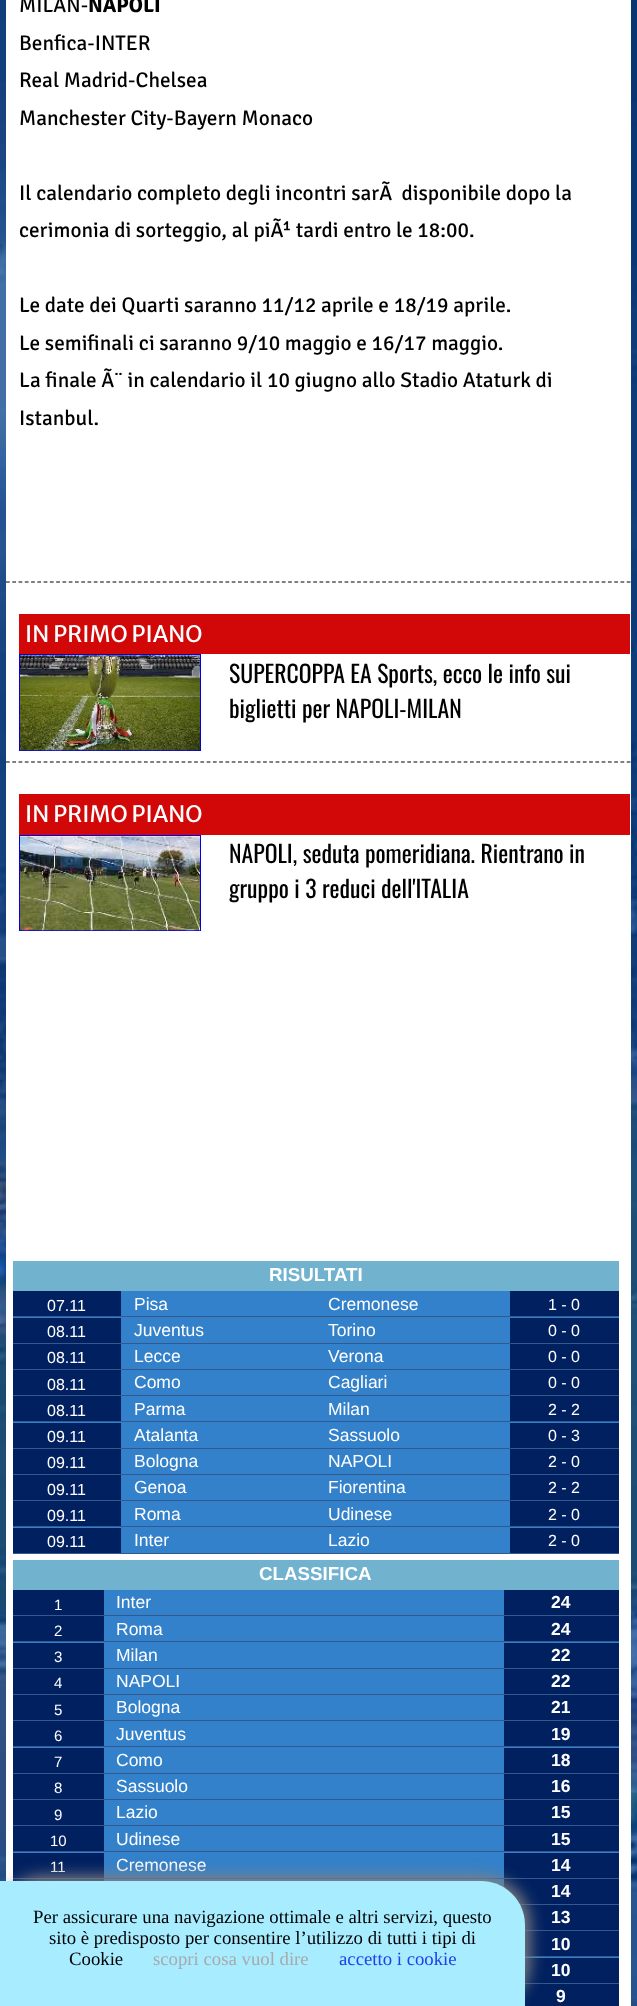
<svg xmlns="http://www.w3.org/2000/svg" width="637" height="2006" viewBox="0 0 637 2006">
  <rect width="100%" height="100%" fill="rgb(255,255,255)"/>
  <image x="0" y="0" width="637" height="2006" href="pic1.png"/>
  <rect x="6" y="0" width="625" height="2006" fill="rgb(255,255,255)"/>
  <text x="19" y="12" font-family="Signika" font-size="21.25" fill="rgb(0,0,0)">MILAN-</text>
  <text x="88" y="12" font-family="Signika" font-size="21.25" font-weight="bold" fill="rgb(0,0,0)">NAPOLI</text>
  <g font-family="Signika" font-size="21.25" fill="rgb(0,0,0)">
    <text>
      <tspan x="19" y="50">Benfica-INTER</tspan>
      <tspan x="19" y="87">Real Madrid-Chelsea</tspan>
      <tspan x="19" y="125">Manchester City-Bayern Monaco</tspan>
    </text>
    <text xml:space="preserve"><tspan x="19" y="200">Il calendario completo degli incontri sarÃ  disponibile dopo la</tspan><tspan x="19" y="237">cerimonia di sorteggio, al piÃ¹ tardi entro le 18:00.</tspan></text>
    <text>
      <tspan x="19" y="312">Le date dei Quarti saranno 11/12 aprile e 18/19 aprile.</tspan>
      <tspan x="19" y="350">Le semifinali ci saranno 9/10 maggio e 16/17 maggio.</tspan>
      <tspan x="19" y="387">La finale Ã¨ in calendario il 10 giugno allo Stadio Ataturk di</tspan>
      <tspan x="19" y="425">Istanbul.</tspan>
    </text>
  </g>
  <path d="M6 582H631" fill="none" stroke="rgb(0,0,0)" stroke-width="1.2" stroke-dasharray="3.75 2.52"/>
  <rect x="19" y="614" width="611" height="40" fill="rgb(210,8,8)"/>
  <text x="25" y="642" font-family="Merriweather Sans" font-size="22.5" fill="rgb(255,255,255)">IN PRIMO PIANO</text>
  <rect x="19.5" y="654.5" width="181" height="96" fill="none" stroke="rgb(0,0,238)"/>
  <image x="20" y="655" width="180" height="96" href="pic2.png"/>
  <g font-family="Oswald" font-size="23.75" fill="rgb(0,0,0)">
    <text>
      <tspan x="229" y="683">SUPERCOPPA EA Sports, ecco le info sui</tspan>
      <tspan x="229" y="718">biglietti per NAPOLI-MILAN</tspan>
    </text>
  </g>
  <path d="M6 762H631" fill="none" stroke="rgb(0,0,0)" stroke-width="1.2" stroke-dasharray="3.75 2.52"/>
  <rect x="19" y="794" width="611" height="41" fill="rgb(210,8,8)"/>
  <text x="25" y="822" font-family="Merriweather Sans" font-size="22.5" fill="rgb(255,255,255)">IN PRIMO PIANO</text>
  <rect x="19.5" y="835.5" width="181" height="95" fill="none" stroke="rgb(0,0,238)"/>
  <image x="20" y="836" width="180" height="95" href="pic3.png"/>
  <g font-family="Oswald" font-size="23.75" fill="rgb(0,0,0)">
    <text>
      <tspan x="229" y="863">NAPOLI, seduta pomeridiana. Rientrano in</tspan>
      <tspan x="229" y="898">gruppo i 3 reduci dell'ITALIA</tspan>
    </text>
  </g>
  <rect x="13" y="1261" width="606" height="30" fill="rgb(113,178,207)"/>
  <text x="269" y="1281" font-family="Liberation Sans" font-size="18.75" font-weight="bold" fill="rgb(255,255,255)">RISULTATI</text>
  <rect x="13" y="1291" width="606" height="27" fill="rgb(51,129,203)"/>
  <rect x="13" y="1316" width="606" height="1" fill="rgb(50,88,142)"/>
  <rect x="13" y="1291" width="108" height="25" fill="rgb(0,32,96)"/>
  <text x="47" y="1311" font-family="Liberation Sans" font-size="16" fill="rgb(255,255,255)">07.11</text>
  <g font-family="Liberation Sans" font-size="17.5" fill="rgb(255,255,255)">
    <text x="134" y="1310">Pisa</text>
    <text x="328" y="1310">Cremonese</text>
  </g>
  <rect x="510" y="1291" width="109" height="25" fill="rgb(0,32,96)"/>
  <text x="548" y="1310" font-family="Liberation Sans" font-size="16" fill="rgb(255,255,255)">1 - 0</text>
  <rect x="121" y="1318" width="389" height="25" fill="rgb(51,129,203)"/>
  <rect x="13" y="1343" width="606" height="1" fill="rgb(50,88,142)"/>
  <rect x="13" y="1318" width="108" height="25" fill="rgb(0,32,96)"/>
  <text x="47" y="1337" font-family="Liberation Sans" font-size="16" fill="rgb(255,255,255)">08.11</text>
  <g font-family="Liberation Sans" font-size="17.5" fill="rgb(255,255,255)">
    <text x="134" y="1336">Juventus</text>
    <text x="328" y="1336">Torino</text>
  </g>
  <rect x="510" y="1318" width="109" height="25" fill="rgb(0,32,96)"/>
  <text x="548" y="1336" font-family="Liberation Sans" font-size="16" fill="rgb(255,255,255)">0 - 0</text>
  <rect x="121" y="1344" width="389" height="25" fill="rgb(51,129,203)"/>
  <rect x="13" y="1369" width="606" height="1" fill="rgb(50,88,142)"/>
  <rect x="13" y="1344" width="108" height="25" fill="rgb(0,32,96)"/>
  <text x="47" y="1363" font-family="Liberation Sans" font-size="16" fill="rgb(255,255,255)">08.11</text>
  <g font-family="Liberation Sans" font-size="17.5" fill="rgb(255,255,255)">
    <text x="134" y="1362">Lecce</text>
    <text x="328" y="1362">Verona</text>
  </g>
  <rect x="510" y="1344" width="109" height="25" fill="rgb(0,32,96)"/>
  <text x="548" y="1362" font-family="Liberation Sans" font-size="16" fill="rgb(255,255,255)">0 - 0</text>
  <rect x="121" y="1370" width="389" height="25" fill="rgb(51,129,203)"/>
  <rect x="13" y="1395" width="606" height="1" fill="rgb(50,88,142)"/>
  <rect x="13" y="1370" width="108" height="25" fill="rgb(0,32,96)"/>
  <text x="47" y="1390" font-family="Liberation Sans" font-size="16" fill="rgb(255,255,255)">08.11</text>
  <g font-family="Liberation Sans" font-size="17.5" fill="rgb(255,255,255)">
    <text x="134" y="1388">Como</text>
    <text x="328" y="1388">Cagliari</text>
  </g>
  <rect x="510" y="1370" width="109" height="25" fill="rgb(0,32,96)"/>
  <text x="548" y="1388" font-family="Liberation Sans" font-size="16" fill="rgb(255,255,255)">0 - 0</text>
  <rect x="13" y="1396" width="606" height="27" fill="rgb(51,129,203)"/>
  <rect x="13" y="1421" width="606" height="1" fill="rgb(50,88,142)"/>
  <rect x="13" y="1396" width="108" height="25" fill="rgb(0,32,96)"/>
  <text x="47" y="1416" font-family="Liberation Sans" font-size="16" fill="rgb(255,255,255)">08.11</text>
  <g font-family="Liberation Sans" font-size="17.5" fill="rgb(255,255,255)">
    <text x="134" y="1415">Parma</text>
    <text x="328" y="1415">Milan</text>
  </g>
  <rect x="510" y="1396" width="109" height="25" fill="rgb(0,32,96)"/>
  <text x="548" y="1415" font-family="Liberation Sans" font-size="16" fill="rgb(255,255,255)">2 - 2</text>
  <rect x="121" y="1423" width="389" height="25" fill="rgb(51,129,203)"/>
  <rect x="13" y="1448" width="606" height="1" fill="rgb(50,88,142)"/>
  <rect x="13" y="1423" width="108" height="25" fill="rgb(0,32,96)"/>
  <text x="47" y="1442" font-family="Liberation Sans" font-size="16" fill="rgb(255,255,255)">09.11</text>
  <g font-family="Liberation Sans" font-size="17.5" fill="rgb(255,255,255)">
    <text x="134" y="1441">Atalanta</text>
    <text x="328" y="1441">Sassuolo</text>
  </g>
  <rect x="510" y="1423" width="109" height="25" fill="rgb(0,32,96)"/>
  <text x="548" y="1441" font-family="Liberation Sans" font-size="16" fill="rgb(255,255,255)">0 - 3</text>
  <rect x="121" y="1449" width="389" height="25" fill="rgb(51,129,203)"/>
  <rect x="13" y="1474" width="606" height="1" fill="rgb(50,88,142)"/>
  <rect x="13" y="1449" width="108" height="25" fill="rgb(0,32,96)"/>
  <text x="47" y="1468" font-family="Liberation Sans" font-size="16" fill="rgb(255,255,255)">09.11</text>
  <g font-family="Liberation Sans" font-size="17.5" fill="rgb(255,255,255)">
    <text x="134" y="1467">Bologna</text>
    <text x="328" y="1467">NAPOLI</text>
  </g>
  <rect x="510" y="1449" width="109" height="25" fill="rgb(0,32,96)"/>
  <text x="548" y="1467" font-family="Liberation Sans" font-size="16" fill="rgb(255,255,255)">2 - 0</text>
  <rect x="121" y="1475" width="389" height="25" fill="rgb(51,129,203)"/>
  <rect x="13" y="1500" width="606" height="1" fill="rgb(50,88,142)"/>
  <rect x="13" y="1475" width="108" height="25" fill="rgb(0,32,96)"/>
  <text x="47" y="1495" font-family="Liberation Sans" font-size="16" fill="rgb(255,255,255)">09.11</text>
  <g font-family="Liberation Sans" font-size="17.5" fill="rgb(255,255,255)">
    <text x="134" y="1493">Genoa</text>
    <text x="328" y="1493">Fiorentina</text>
  </g>
  <rect x="510" y="1475" width="109" height="25" fill="rgb(0,32,96)"/>
  <text x="548" y="1493" font-family="Liberation Sans" font-size="16" fill="rgb(255,255,255)">2 - 2</text>
  <rect x="13" y="1501" width="606" height="27" fill="rgb(51,129,203)"/>
  <rect x="13" y="1526" width="606" height="1" fill="rgb(50,88,142)"/>
  <rect x="13" y="1501" width="108" height="25" fill="rgb(0,32,96)"/>
  <text x="47" y="1521" font-family="Liberation Sans" font-size="16" fill="rgb(255,255,255)">09.11</text>
  <g font-family="Liberation Sans" font-size="17.5" fill="rgb(255,255,255)">
    <text x="134" y="1520">Roma</text>
    <text x="328" y="1520">Udinese</text>
  </g>
  <rect x="510" y="1501" width="109" height="25" fill="rgb(0,32,96)"/>
  <text x="548" y="1520" font-family="Liberation Sans" font-size="16" fill="rgb(255,255,255)">2 - 0</text>
  <rect x="121" y="1528" width="389" height="25" fill="rgb(51,129,203)"/>
  <rect x="13" y="1553" width="606" height="1" fill="rgb(50,88,142)"/>
  <rect x="13" y="1528" width="108" height="25" fill="rgb(0,32,96)"/>
  <text x="47" y="1547" font-family="Liberation Sans" font-size="16" fill="rgb(255,255,255)">09.11</text>
  <g font-family="Liberation Sans" font-size="17.5" fill="rgb(255,255,255)">
    <text x="134" y="1546">Inter</text>
    <text x="328" y="1546">Lazio</text>
  </g>
  <rect x="510" y="1528" width="109" height="25" fill="rgb(0,32,96)"/>
  <text x="548" y="1546" font-family="Liberation Sans" font-size="16" fill="rgb(255,255,255)">2 - 0</text>
  <rect x="13" y="1560" width="606" height="30" fill="rgb(113,178,207)"/>
  <text x="259" y="1580" font-family="Liberation Sans" font-size="18.75" font-weight="bold" fill="rgb(255,255,255)">CLASSIFICA</text>
  <rect x="104" y="1590" width="400" height="25" fill="rgb(51,129,203)"/>
  <rect x="13" y="1615" width="606" height="1" fill="rgb(50,88,142)"/>
  <rect x="13" y="1590" width="91" height="25" fill="rgb(0,32,96)"/>
  <text x="54" y="1610" font-family="Liberation Sans" font-size="15" fill="rgb(255,255,255)">1</text>
  <text x="116" y="1608" font-family="Liberation Sans" font-size="17.5" fill="rgb(255,255,255)">Inter</text>
  <rect x="504" y="1590" width="115" height="25" fill="rgb(0,32,96)"/>
  <text x="551" y="1608" font-family="Liberation Sans" font-size="17.5" font-weight="bold" fill="rgb(255,255,255)">24</text>
  <rect x="13" y="1616" width="606" height="27" fill="rgb(51,129,203)"/>
  <rect x="13" y="1641" width="606" height="1" fill="rgb(50,88,142)"/>
  <rect x="13" y="1616" width="91" height="25" fill="rgb(0,32,96)"/>
  <text x="54" y="1636" font-family="Liberation Sans" font-size="15" fill="rgb(255,255,255)">2</text>
  <text x="116" y="1635" font-family="Liberation Sans" font-size="17.5" fill="rgb(255,255,255)">Roma</text>
  <rect x="504" y="1616" width="115" height="25" fill="rgb(0,32,96)"/>
  <text x="551" y="1635" font-family="Liberation Sans" font-size="17.5" font-weight="bold" fill="rgb(255,255,255)">24</text>
  <rect x="104" y="1643" width="400" height="25" fill="rgb(51,129,203)"/>
  <rect x="13" y="1668" width="606" height="1" fill="rgb(50,88,142)"/>
  <rect x="13" y="1643" width="91" height="25" fill="rgb(0,32,96)"/>
  <text x="54" y="1662" font-family="Liberation Sans" font-size="15" fill="rgb(255,255,255)">3</text>
  <text x="116" y="1661" font-family="Liberation Sans" font-size="17.5" fill="rgb(255,255,255)">Milan</text>
  <rect x="504" y="1643" width="115" height="25" fill="rgb(0,32,96)"/>
  <text x="551" y="1661" font-family="Liberation Sans" font-size="17.5" font-weight="bold" fill="rgb(255,255,255)">22</text>
  <rect x="104" y="1669" width="400" height="25" fill="rgb(51,129,203)"/>
  <rect x="13" y="1694" width="606" height="1" fill="rgb(50,88,142)"/>
  <rect x="13" y="1669" width="91" height="25" fill="rgb(0,32,96)"/>
  <text x="54" y="1688" font-family="Liberation Sans" font-size="15" fill="rgb(255,255,255)">4</text>
  <text x="116" y="1687" font-family="Liberation Sans" font-size="17.5" fill="rgb(255,255,255)">NAPOLI</text>
  <rect x="504" y="1669" width="115" height="25" fill="rgb(0,32,96)"/>
  <text x="551" y="1687" font-family="Liberation Sans" font-size="17.5" font-weight="bold" fill="rgb(255,255,255)">22</text>
  <rect x="104" y="1695" width="400" height="25" fill="rgb(51,129,203)"/>
  <rect x="13" y="1720" width="606" height="1" fill="rgb(50,88,142)"/>
  <rect x="13" y="1695" width="91" height="25" fill="rgb(0,32,96)"/>
  <text x="54" y="1715" font-family="Liberation Sans" font-size="15" fill="rgb(255,255,255)">5</text>
  <text x="116" y="1713" font-family="Liberation Sans" font-size="17.5" fill="rgb(255,255,255)">Bologna</text>
  <rect x="504" y="1695" width="115" height="25" fill="rgb(0,32,96)"/>
  <text x="551" y="1713" font-family="Liberation Sans" font-size="17.5" font-weight="bold" fill="rgb(255,255,255)">21</text>
  <rect x="13" y="1721" width="606" height="27" fill="rgb(51,129,203)"/>
  <rect x="13" y="1746" width="606" height="1" fill="rgb(50,88,142)"/>
  <rect x="13" y="1721" width="91" height="25" fill="rgb(0,32,96)"/>
  <text x="54" y="1741" font-family="Liberation Sans" font-size="15" fill="rgb(255,255,255)">6</text>
  <text x="116" y="1740" font-family="Liberation Sans" font-size="17.5" fill="rgb(255,255,255)">Juventus</text>
  <rect x="504" y="1721" width="115" height="25" fill="rgb(0,32,96)"/>
  <text x="551" y="1740" font-family="Liberation Sans" font-size="17.5" font-weight="bold" fill="rgb(255,255,255)">19</text>
  <rect x="104" y="1748" width="400" height="25" fill="rgb(51,129,203)"/>
  <rect x="13" y="1773" width="606" height="1" fill="rgb(50,88,142)"/>
  <rect x="13" y="1748" width="91" height="25" fill="rgb(0,32,96)"/>
  <text x="54" y="1767" font-family="Liberation Sans" font-size="15" fill="rgb(255,255,255)">7</text>
  <text x="116" y="1766" font-family="Liberation Sans" font-size="17.5" fill="rgb(255,255,255)">Como</text>
  <rect x="504" y="1748" width="115" height="25" fill="rgb(0,32,96)"/>
  <text x="551" y="1766" font-family="Liberation Sans" font-size="17.5" font-weight="bold" fill="rgb(255,255,255)">18</text>
  <rect x="104" y="1774" width="400" height="25" fill="rgb(51,129,203)"/>
  <rect x="13" y="1799" width="606" height="1" fill="rgb(50,88,142)"/>
  <rect x="13" y="1774" width="91" height="25" fill="rgb(0,32,96)"/>
  <text x="54" y="1793" font-family="Liberation Sans" font-size="15" fill="rgb(255,255,255)">8</text>
  <text x="116" y="1792" font-family="Liberation Sans" font-size="17.5" fill="rgb(255,255,255)">Sassuolo</text>
  <rect x="504" y="1774" width="115" height="25" fill="rgb(0,32,96)"/>
  <text x="551" y="1792" font-family="Liberation Sans" font-size="17.5" font-weight="bold" fill="rgb(255,255,255)">16</text>
  <rect x="104" y="1800" width="400" height="25" fill="rgb(51,129,203)"/>
  <rect x="13" y="1825" width="606" height="1" fill="rgb(50,88,142)"/>
  <rect x="13" y="1800" width="91" height="25" fill="rgb(0,32,96)"/>
  <text x="54" y="1820" font-family="Liberation Sans" font-size="15" fill="rgb(255,255,255)">9</text>
  <text x="116" y="1818" font-family="Liberation Sans" font-size="17.5" fill="rgb(255,255,255)">Lazio</text>
  <rect x="504" y="1800" width="115" height="25" fill="rgb(0,32,96)"/>
  <text x="551" y="1818" font-family="Liberation Sans" font-size="17.5" font-weight="bold" fill="rgb(255,255,255)">15</text>
  <rect x="13" y="1826" width="606" height="27" fill="rgb(51,129,203)"/>
  <rect x="13" y="1851" width="606" height="1" fill="rgb(50,88,142)"/>
  <rect x="13" y="1826" width="91" height="25" fill="rgb(0,32,96)"/>
  <text x="50" y="1846" font-family="Liberation Sans" font-size="15" fill="rgb(255,255,255)">10</text>
  <text x="116" y="1845" font-family="Liberation Sans" font-size="17.5" fill="rgb(255,255,255)">Udinese</text>
  <rect x="504" y="1826" width="115" height="25" fill="rgb(0,32,96)"/>
  <text x="551" y="1845" font-family="Liberation Sans" font-size="17.5" font-weight="bold" fill="rgb(255,255,255)">15</text>
  <rect x="104" y="1853" width="400" height="25" fill="rgb(51,129,203)"/>
  <rect x="13" y="1878" width="606" height="1" fill="rgb(50,88,142)"/>
  <rect x="13" y="1853" width="91" height="25" fill="rgb(0,32,96)"/>
  <text x="50" y="1872" font-family="Liberation Sans" font-size="15" fill="rgb(255,255,255)">11</text>
  <text x="116" y="1871" font-family="Liberation Sans" font-size="17.5" fill="rgb(255,255,255)">Cremonese</text>
  <rect x="504" y="1853" width="115" height="25" fill="rgb(0,32,96)"/>
  <text x="551" y="1871" font-family="Liberation Sans" font-size="17.5" font-weight="bold" fill="rgb(255,255,255)">14</text>
  <rect x="104" y="1879" width="400" height="9" fill="rgb(51,129,203)"/>
  <rect x="519" y="1904" width="100" height="1" fill="rgb(50,88,142)"/>
  <rect x="13" y="1879" width="91" height="2" fill="rgb(0,32,96)"/>
  <rect x="504" y="1879" width="115" height="25" fill="rgb(0,32,96)"/>
  <text x="551" y="1897" font-family="Liberation Sans" font-size="17.5" font-weight="bold" fill="rgb(255,255,255)">14</text>
  <rect x="525" y="1930" width="94" height="1" fill="rgb(50,88,142)"/>
  <rect x="520" y="1905" width="99" height="25" fill="rgb(0,32,96)"/>
  <text x="551" y="1923" font-family="Liberation Sans" font-size="17.5" font-weight="bold" fill="rgb(255,255,255)">13</text>
  <rect x="525" y="1957" width="94" height="1" fill="rgb(51,129,203)"/>
  <rect x="525" y="1956" width="94" height="1" fill="rgb(50,88,142)"/>
  <rect x="525" y="1931" width="94" height="25" fill="rgb(0,32,96)"/>
  <text x="551" y="1950" font-family="Liberation Sans" font-size="17.5" font-weight="bold" fill="rgb(255,255,255)">10</text>
  <rect x="525" y="1983" width="94" height="1" fill="rgb(50,88,142)"/>
  <rect x="525" y="1958" width="94" height="25" fill="rgb(0,32,96)"/>
  <text x="551" y="1976" font-family="Liberation Sans" font-size="17.5" font-weight="bold" fill="rgb(255,255,255)">10</text>
  <rect x="525" y="1984" width="94" height="22" fill="rgb(0,32,96)"/>
  <text x="556" y="2002" font-family="Liberation Sans" font-size="17.5" font-weight="bold" fill="rgb(255,255,255)">9</text>
  <rect x="-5" y="1876" width="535" height="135" rx="49" fill="rgb(128,128,128)" filter="blur(7.5px)"/>
  <path d="M0 1881H481C505.5 1881 525 1900.5 525 1925V2006H0Z" fill="rgb(168,236,255)"/>
  <g font-family="Liberation Serif" font-size="18.75" fill="rgb(0,0,0)">
    <text x="33" y="1923">Per assicurare una navigazione ottimale e altri servizi, questo</text>
    <text x="49" y="1944">sito è predisposto per consentire l’utilizzo di tutti i tipi di</text>
    <text x="69" y="1965">Cookie</text>
  </g>
  <text x="153" y="1965" font-family="Liberation Serif" font-size="18.75" fill="rgb(169,169,169)">scopri cosa vuol dire</text>
  <text x="339" y="1965" font-family="Liberation Serif" font-size="18.75" fill="rgb(32,65,234)">accetto i cookie</text>
</svg>
